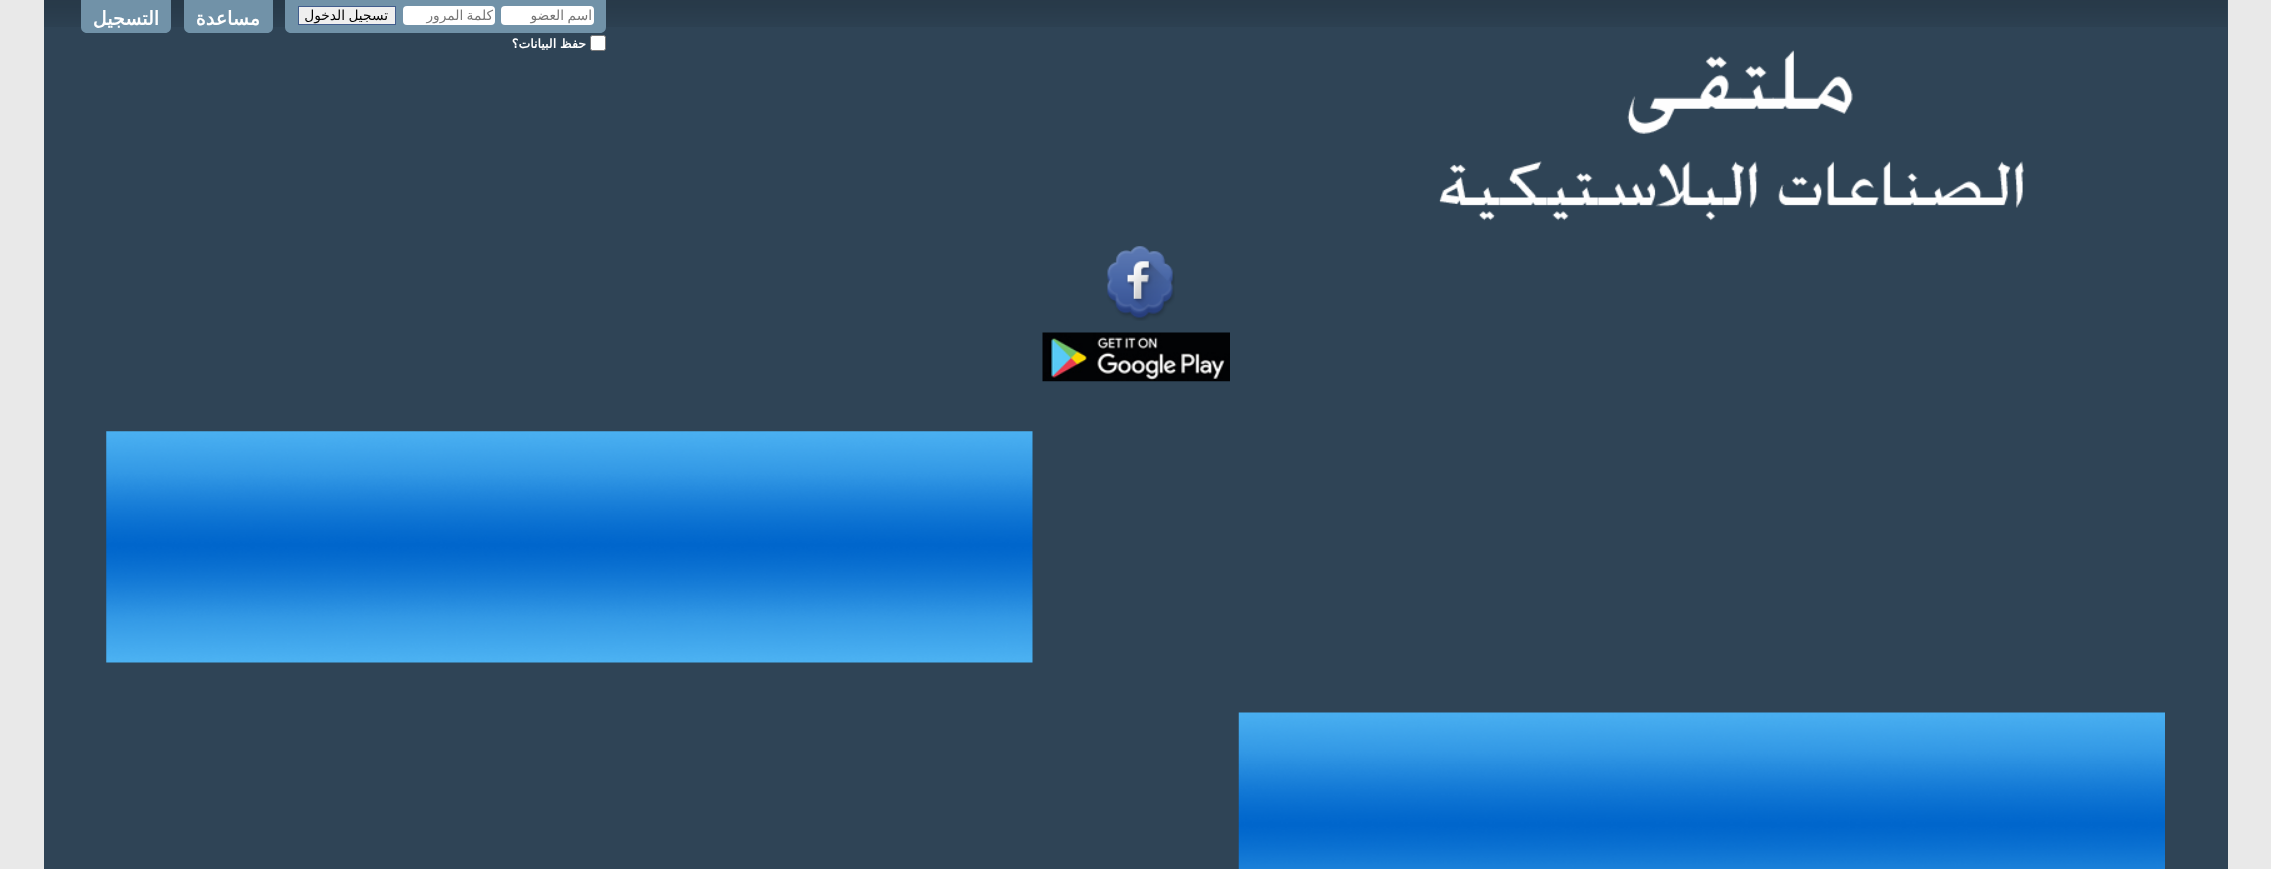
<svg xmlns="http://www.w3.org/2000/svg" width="2271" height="869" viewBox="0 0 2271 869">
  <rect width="100%" height="100%" fill="rgb(233,233,233)"/>
  <rect x="44" y="0" width="2184" height="869" fill="rgb(47,68,86)"/>
  <image x="44" y="0" width="2183" height="27" href="pic1.png"/>
  <path d="M285 0H606V27C606 30.5 603.5 33 600 33H291C287.5 33 285 30.5 285 27Z" fill="rgb(113,146,168)"/>
  <rect x="501" y="6" width="93" height="19" rx="4" fill="rgb(255,255,255)"/>
  <text x="592" y="20" word-spacing="-1" font-family="DejaVu Sans" font-size="13.75" direction="rtl" fill="rgb(119,119,119)">اسم العضو</text>
  <rect x="403" y="6" width="92" height="19" rx="4" fill="rgb(255,255,255)"/>
  <text x="493" y="20" word-spacing="-1" font-family="DejaVu Sans" font-size="13.75" direction="rtl" fill="rgb(119,119,119)">كلمة المرور</text>
  <rect x="298.5" y="6.5" width="97" height="18" fill="rgb(239,239,239)" stroke="rgb(65,93,141)"/>
  <text x="388" y="20" word-spacing="-1" font-family="DejaVu Sans" font-size="13.75" direction="rtl" fill="rgb(0,0,0)">تسجيل الدخول</text>
  <rect x="590.5" y="35.5" width="15" height="15" rx="2" fill="rgb(255,255,255)" stroke="rgb(118,118,118)"/>
  <text x="586" y="48" font-family="DejaVu Sans" font-size="12.5" font-weight="bold" direction="rtl" fill="rgb(255,255,255)">حفظ البيانات؟</text>
  <path d="M184 0H273V27C273 30.5 270.5 33 267 33H190C186.5 33 184 30.5 184 27Z" fill="rgb(113,146,168)"/>
  <text x="260" y="25" font-family="DejaVu Sans" font-size="19" font-weight="bold" direction="rtl" fill="rgb(255,255,255)">مساعدة</text>
  <path d="M81 0H171V27C171 30.5 168.5 33 165 33H87C83.5 33 81 30.5 81 27Z" fill="rgb(113,146,168)"/>
  <text x="159" y="25" font-family="DejaVu Sans" font-size="19" font-weight="bold" direction="rtl" fill="rgb(255,255,255)">التسجيل</text>
  <image x="1439" y="50" width="585" height="171" href="pic2.png"/>
  <image x="1107" y="246" width="68" height="75" href="pic3.png"/>
  <image x="1042" y="332" width="188" height="50" href="pic4.png"/>
  <image x="106" y="431" width="927" height="232" href="pic5.png"/>
  <image x="1238" y="712" width="927" height="157" href="pic6.png"/>
</svg>
